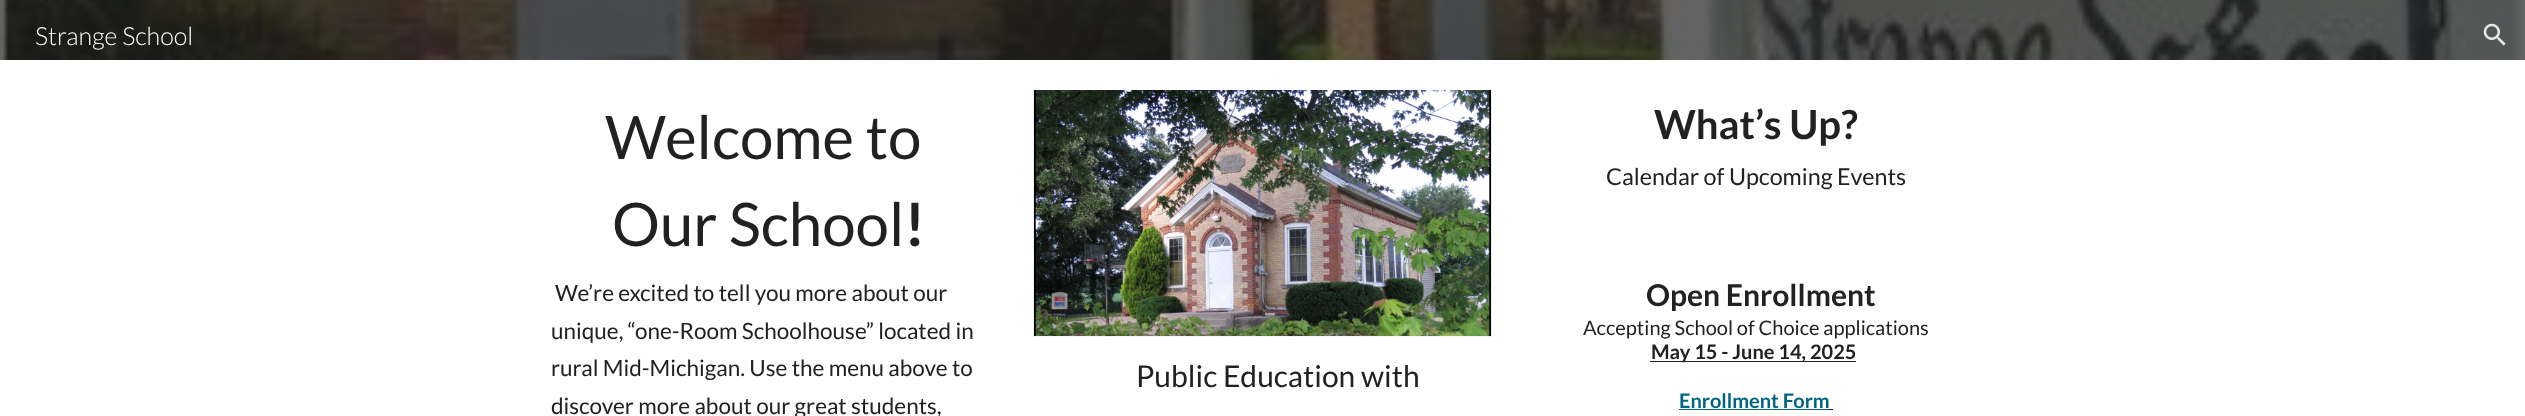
<svg xmlns="http://www.w3.org/2000/svg" width="2525" height="416" viewBox="0 0 2525 416">
  <rect width="100%" height="100%" fill="rgb(255,255,255)"/>
  <image x="0" y="0" width="2525" height="60" href="pic2.png"/>
  <text x="35" y="45" font-family="Lato" font-size="25" font-weight="300" fill="rgb(255,255,255)">Strange School</text>
  <image x="2483" y="23" width="23" height="23" href="pic1.png"/>
  <g font-family="Lato" font-size="60" fill="rgb(33,33,33)">
    <text x="605" y="159">Welcome to</text>
    <text x="612" y="246">Our School</text>
  </g>
  <text x="904" y="246" font-family="Lato" font-size="60" font-weight="bold" fill="rgb(33,33,33)">!</text>
  <g font-family="Lato" font-size="22.5" fill="rgb(33,33,33)">
    <text x="555" y="301">We’re excited to tell you more about our</text>
    <text>
      <tspan x="551" y="339">unique, “one-Room Schoolhouse” located in</tspan>
      <tspan x="551" y="376">rural Mid-Michigan. Use the menu above to</tspan>
      <tspan x="551" y="414">discover more about our great students,</tspan>
    </text>
  </g>
  <image x="1033" y="90" width="459" height="247" href="pic3.png"/>
  <text x="1136" y="387" font-family="Lato" font-size="30" fill="rgb(33,33,33)">Public Education with</text>
  <text x="1654" y="139" font-family="Lato" font-size="40" font-weight="bold" fill="rgb(33,33,33)">What’s Up?</text>
  <text x="1606" y="185" font-family="Lato" font-size="23.3" fill="rgb(33,33,33)">Calendar of Upcoming Events</text>
  <text x="1646" y="306" font-family="Lato" font-size="30" font-weight="bold" fill="rgb(33,33,33)">Open Enrollment</text>
  <text x="1583" y="335" font-family="Lato" font-size="20" fill="rgb(33,33,33)">Accepting School of Choice applications</text>
  <rect x="1650" y="361" width="206" height="1" fill="rgb(33,33,33)"/>
  <text x="1651" y="359" font-family="Lato" font-size="20" font-weight="bold" fill="rgb(33,33,33)">May 15 - June 14, 2025</text>
  <text x="1679" y="408" font-family="Lato" font-size="20" font-weight="bold" fill="rgb(0,101,128)">Enrollment Form</text>
  <rect x="1679" y="409" width="150" height="1" fill="rgb(0,101,128)"/>
  <rect x="1829" y="409" width="4" height="1" fill="rgb(33,33,33)"/>
</svg>
